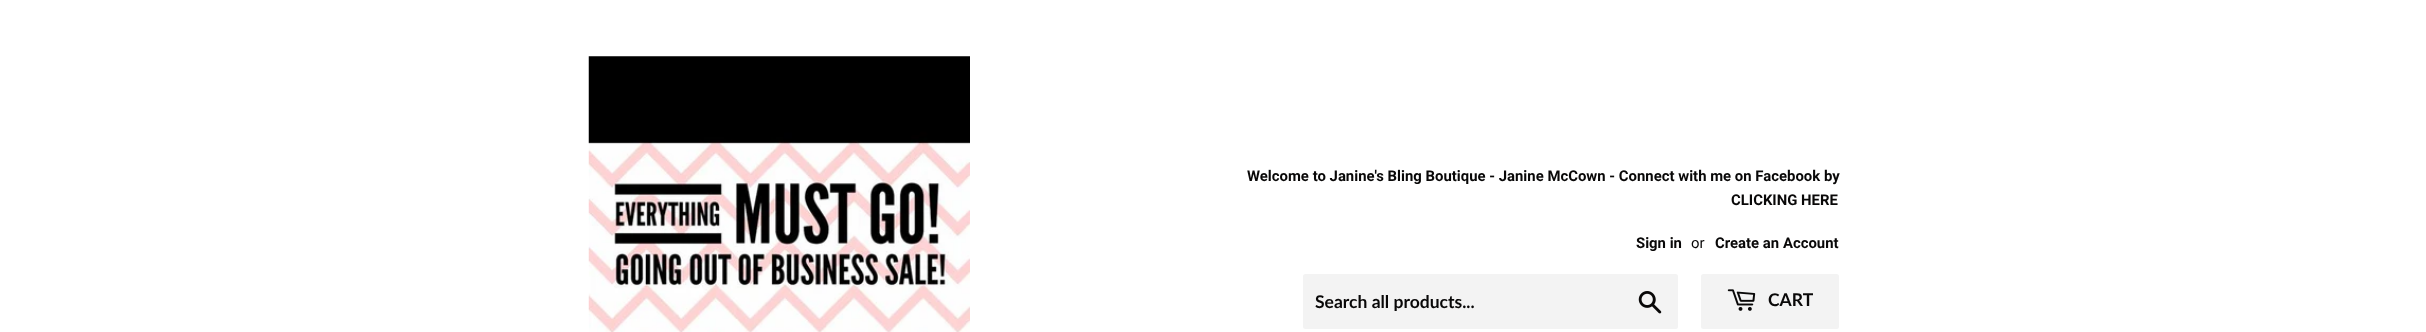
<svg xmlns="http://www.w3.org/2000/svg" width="2426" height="332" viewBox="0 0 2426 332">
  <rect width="100%" height="100%" fill="rgb(255,255,255)"/>
  <image x="588" y="56" width="382" height="276" href="pic1.png"/>
  <g font-family="Roboto" font-size="14.9" font-weight="bold" fill="rgb(9,8,8)">
    <text x="1247" y="181">Welcome to Janine's Bling Boutique - Janine McCown - Connect with me on Facebook by</text>
    <text x="1731" y="205">CLICKING HERE</text>
    <text x="1636" y="248">Sign in</text>
  </g>
  <text x="1691" y="248" font-family="Roboto" font-size="14.9" fill="rgb(9,8,8)">or</text>
  <text x="1715" y="248" font-family="Roboto" font-size="14.9" font-weight="bold" fill="rgb(9,8,8)">Create an Account</text>
  <rect x="1303" y="274" width="375" height="55" rx="2.5" fill="rgb(243,243,243)"/>
  <text x="1315" y="308" font-family="Lato" font-size="17.5" font-weight="bold" fill="rgb(9,8,8)">Search all products...</text>
  <image x="1638" y="291" width="24" height="23" href="pic2.png"/>
  <rect x="1701" y="274" width="138" height="55" rx="2.5" fill="rgb(243,243,243)"/>
  <image x="1727" y="289" width="29" height="22" href="pic3.png"/>
  <text x="1768" y="306" font-family="Lato" font-size="17.5" font-weight="bold" fill="rgb(9,8,8)">CART</text>
</svg>
